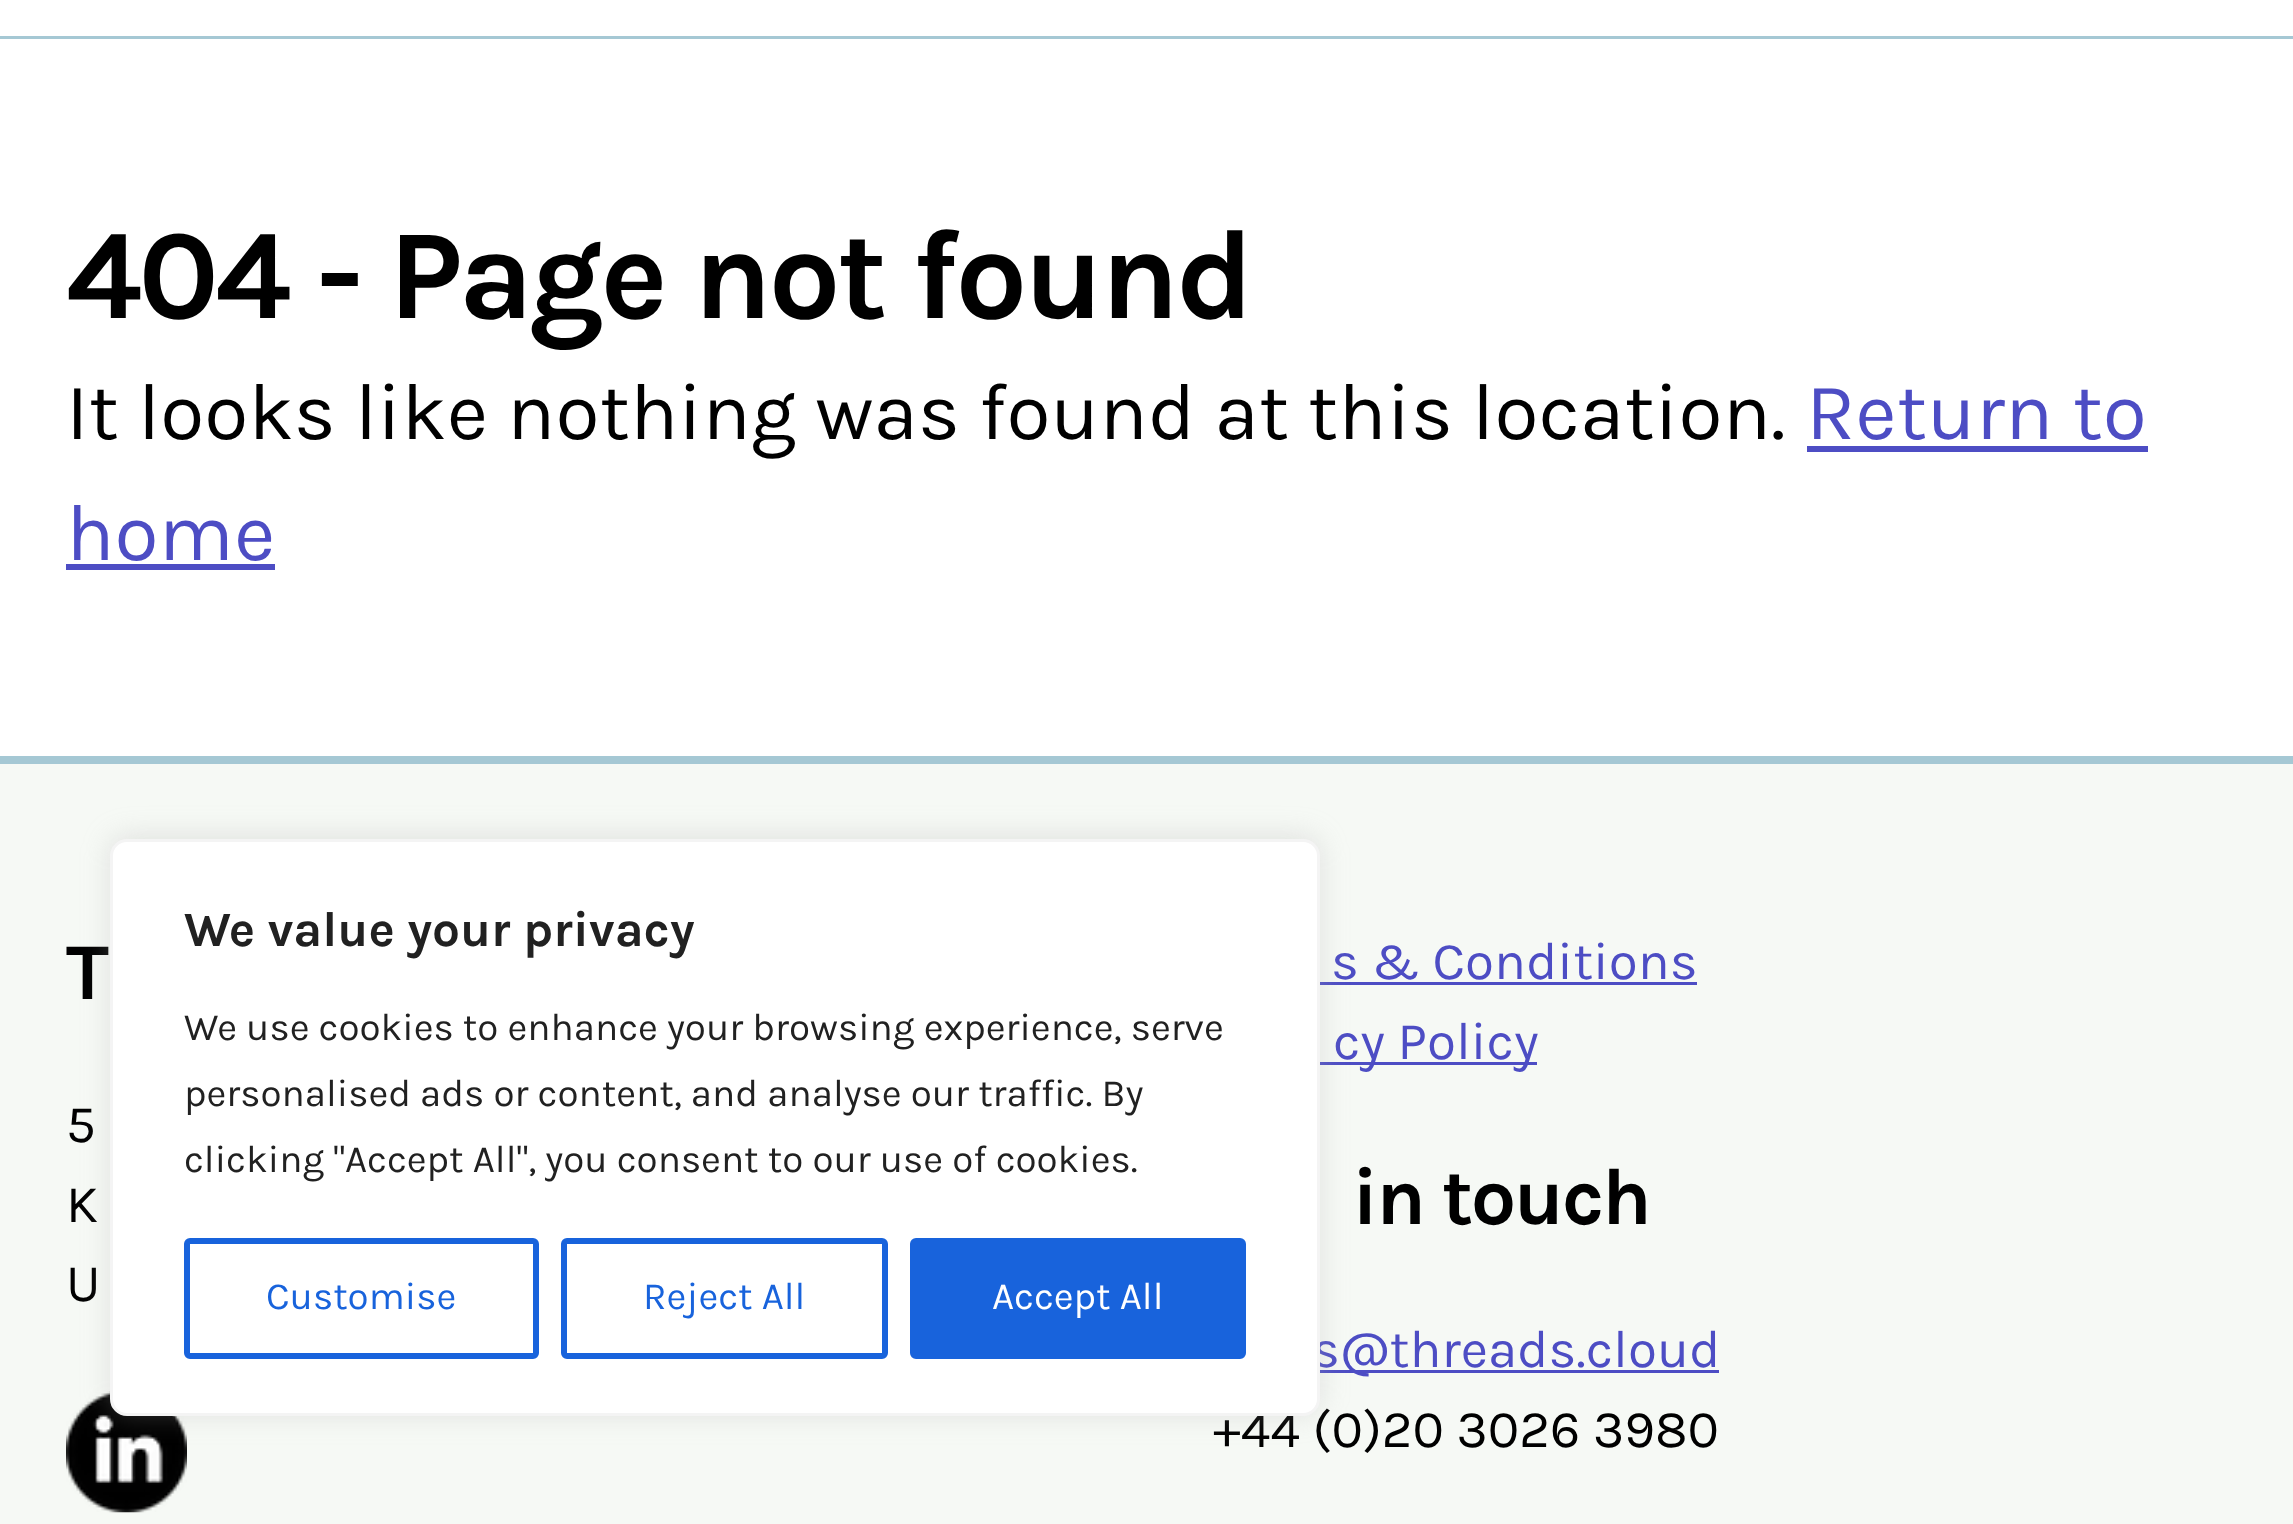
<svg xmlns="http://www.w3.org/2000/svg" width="2293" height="1524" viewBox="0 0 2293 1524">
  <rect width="100%" height="100%" fill="rgb(255,255,255)"/>
  <rect x="0" y="36" width="2293" height="3" fill="rgb(165,200,212)"/>
  <text x="66" y="318" font-family="Karla" font-size="127.75" font-weight="bold" letter-spacing="-3.8" fill="rgb(0,0,0)">404 - Page not found</text>
  <text x="66" y="439" word-spacing="-0.25" font-family="Karla" font-size="80.5" fill="rgb(0,0,0)">It looks like nothing was found at this location.</text>
  <text x="1806" y="439" font-family="Karla" font-size="80.5" fill="rgb(77,77,196)">Return to</text>
  <rect x="1807" y="446" width="341" height="6" fill="rgb(77,77,196)"/>
  <text x="66" y="560" font-family="Karla" font-size="80.5" fill="rgb(77,77,196)">home</text>
  <rect x="66" y="564" width="209" height="6" fill="rgb(77,77,196)"/>
  <rect x="0" y="764" width="2293" height="760" fill="rgb(246,249,245)"/>
  <rect x="0" y="756" width="2293" height="8" fill="rgb(165,200,212)"/>
  <text x="66" y="999" font-family="Karla" font-size="80.5" font-weight="bold" letter-spacing="-2.5" fill="rgb(0,0,0)">T</text>
  <g font-family="Karla" font-size="53" fill="rgb(0,0,0)">
    <text>
      <tspan x="66" y="1142">5</tspan>
      <tspan x="66" y="1222">K</tspan>
      <tspan x="66" y="1301">U</tspan>
    </text>
  </g>
  <image x="66" y="1391" width="121" height="122" href="pic1.png"/>
  <text x="1331" y="979" font-family="Karla" font-size="53" fill="rgb(77,77,196)">s &amp; Conditions</text>
  <rect x="1320" y="982" width="377" height="3" fill="rgb(77,77,196)"/>
  <rect x="1320" y="1062" width="217" height="3" fill="rgb(77,77,196)"/>
  <text x="1333" y="1059" font-family="Karla" font-size="53" fill="rgb(77,77,196)">cy Policy</text>
  <text x="1352" y="1224" font-family="Karla" font-size="80.5" font-weight="bold" letter-spacing="-2.5" fill="rgb(0,0,0)">in touch</text>
  <rect x="1320" y="1370" width="399" height="3" fill="rgb(77,77,196)"/>
  <text x="1312" y="1367" font-family="Karla" font-size="53" fill="rgb(77,77,196)">s@threads.cloud</text>
  <text x="1213" y="1447" font-family="Karla" font-size="53" fill="rgb(0,0,0)">+44 (0)20 3026 3980</text>
  <rect x="110" y="836" width="1210" height="578" rx="17" fill="rgba(172,171,171,0.3)" filter="blur(14px)"/>
  <rect x="111.5" y="840.5" width="1207" height="574" rx="15.5" fill="rgb(255,255,255)" stroke="rgb(244,244,244)" stroke-width="3"/>
  <text x="184" y="946" font-family="Karla" font-size="49.5" font-weight="bold" fill="rgb(33,33,33)">We value your privacy</text>
  <g font-family="Karla" font-size="38.5" fill="rgb(33,33,33)">
    <text>
      <tspan x="184" y="1040">We use cookies to enhance your browsing experience, serve</tspan>
      <tspan x="184" y="1106">personalised ads or content, and analyse our traffic. By</tspan>
      <tspan x="184" y="1172">clicking "Accept All", you consent to our use of cookies.</tspan>
    </text>
  </g>
  <rect x="187" y="1241" width="349" height="115" rx="3" fill="none" stroke="rgb(24,99,220)" stroke-width="6"/>
  <text x="266" y="1309" font-family="Karla" font-size="38.5" fill="rgb(24,99,220)">Customise</text>
  <rect x="564" y="1241" width="321" height="115" rx="3" fill="none" stroke="rgb(24,99,220)" stroke-width="6"/>
  <text x="643" y="1309" font-family="Karla" font-size="38.5" fill="rgb(24,99,220)">Reject All</text>
  <rect x="913" y="1241" width="330" height="115" rx="3" fill="rgb(24,99,220)" stroke="rgb(24,99,220)" stroke-width="6"/>
  <text x="992" y="1309" font-family="Karla" font-size="38.5" fill="rgb(255,255,255)">Accept All</text>
</svg>
